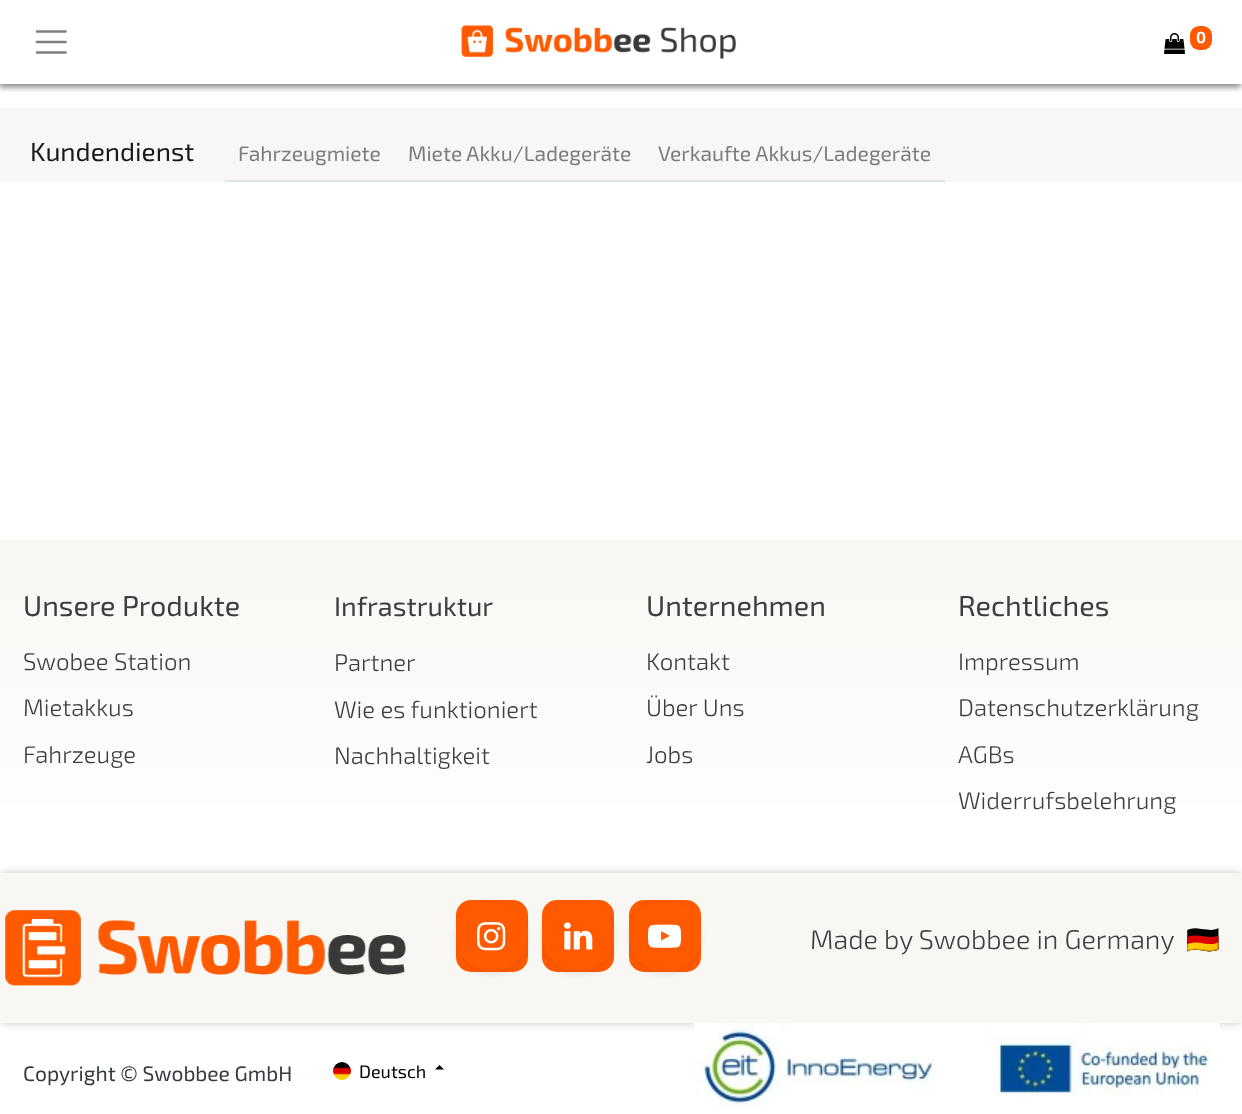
<svg xmlns="http://www.w3.org/2000/svg" width="1242" height="1114" viewBox="0 0 1242 1114">
  <defs>
    <clipPath id="clip1"><rect x="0" y="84" width="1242" height="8"/></clipPath>
    <linearGradient id="g1" gradientUnits="userSpaceOnUse" x1="621" y1="873" x2="621" y2="540"><stop offset="0" stop-color="rgb(255,255,255)"/><stop offset="1" stop-color="rgb(248,247,243)"/></linearGradient>
  </defs>
  <rect width="100%" height="100%" fill="rgb(255,255,255)"/>
  <g clip-path="url(#clip1)">
    <rect x="-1" y="3" width="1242" height="84" fill="rgba(0,0,0,0.5)" filter="blur(3px)"/>
  </g>
  <path d="M37 31.5H65.5M37 42H65.5M37 52.5H65.5" fill="none" stroke="rgb(128,128,128)" stroke-width="2.6" stroke-linecap="round"/>
  <image x="461" y="24" width="276" height="35" href="pic1.png"/>
  <image x="1164" y="33" width="21" height="21" href="pic2.png"/>
  <rect x="1190" y="26" width="22" height="24" rx="9" fill="rgb(255,90,0)"/>
  <text x="1196" y="43" font-family="'Exo 2'" font-size="16" font-weight="bold" fill="rgb(255,255,255)">0</text>
  <rect x="0" y="108" width="1242" height="74" fill="rgb(249,247,246)"/>
  <text x="30" y="161" font-family="'Exo 2'" font-size="26.25" fill="rgb(25,25,25)">Kundendienst</text>
  <rect x="225" y="180" width="720" height="2" fill="rgb(222,226,230)"/>
  <g font-family="'Exo 2'" font-size="21" fill="rgb(125,124,123)">
    <text x="238" y="161">Fahrzeugmiete</text>
    <text x="408" y="161">Miete Akku/Ladegeräte</text>
    <text x="658" y="161">Verkaufte Akkus/Ladegeräte</text>
  </g>
  <rect x="0" y="540" width="1242" height="264" fill="url(#g1)"/>
  <text x="23" y="616" font-family="'Exo 2'" font-size="28.75" fill="rgb(63,62,62)">Unsere Produkte</text>
  <g font-family="'Exo 2'" font-size="24" font-weight="300" fill="rgb(63,62,62)">
    <text>
      <tspan x="23" y="670">Swobee Station</tspan>
      <tspan x="23" y="716">Mietakkus</tspan>
      <tspan x="23" y="763">Fahrzeuge</tspan>
    </text>
  </g>
  <text x="334" y="616" font-family="'Exo 2'" font-size="27" fill="rgb(63,62,62)">Infrastruktur</text>
  <g font-family="'Exo 2'" font-size="24" font-weight="300" fill="rgb(63,62,62)">
    <text>
      <tspan x="334" y="671">Partner</tspan>
      <tspan x="334" y="718">Wie es funktioniert</tspan>
      <tspan x="334" y="764">Nachhaltigkeit</tspan>
    </text>
  </g>
  <text x="646" y="616" font-family="'Exo 2'" font-size="28.75" fill="rgb(63,62,62)">Unternehmen</text>
  <g font-family="'Exo 2'" font-size="24" font-weight="300" fill="rgb(63,62,62)">
    <text>
      <tspan x="646" y="670">Kontakt</tspan>
      <tspan x="646" y="716">Über Uns</tspan>
      <tspan x="646" y="763">Jobs</tspan>
    </text>
  </g>
  <text x="958" y="616" font-family="'Exo 2'" font-size="28.75" fill="rgb(63,62,62)">Rechtliches</text>
  <g font-family="'Exo 2'" font-size="24" font-weight="300" fill="rgb(63,62,62)">
    <text>
      <tspan x="958" y="670">Impressum</tspan>
      <tspan x="958" y="716">Datenschutzerklärung</tspan>
      <tspan x="958" y="763">AGBs</tspan>
      <tspan x="958" y="809">Widerrufsbelehrung</tspan>
    </text>
  </g>
  <rect x="0" y="873" width="1242" height="150" fill="rgba(0,0,0,0.2)" filter="blur(4px)"/>
  <rect x="0" y="873" width="1242" height="150" fill="rgb(248,247,243)"/>
  <image x="5" y="910" width="401" height="76" href="pic3.png"/>
  <rect x="456" y="900" width="72" height="72" rx="15" fill="rgb(255,90,0)"/>
  <rect x="456" y="903" width="72" height="72" rx="36" fill="rgba(0,0,0,0.07)" filter="blur(3px)"/>
  <circle cx="492" cy="936" r="36" fill="rgb(255,90,0)"/>
  <image x="477" y="922" width="29" height="29" href="pic4.png"/>
  <rect x="542" y="900" width="72" height="72" rx="15" fill="rgb(255,90,0)"/>
  <rect x="542" y="903" width="72" height="72" rx="36" fill="rgba(0,0,0,0.07)" filter="blur(3px)"/>
  <circle cx="578" cy="936" r="36" fill="rgb(255,90,0)"/>
  <image x="564" y="922" width="29" height="28" href="pic5.png"/>
  <rect x="629" y="900" width="72" height="72" rx="15" fill="rgb(255,90,0)"/>
  <rect x="629" y="903" width="72" height="72" rx="36" fill="rgba(0,0,0,0.07)" filter="blur(3px)"/>
  <circle cx="665" cy="936" r="36" fill="rgb(255,90,0)"/>
  <image x="648" y="924" width="33" height="24" href="pic6.png"/>
  <text x="810" y="949" font-family="'Exo 2'" font-size="27" font-weight="300" fill="rgb(63,62,62)">Made by Swobbee in Germany</text>
  <text x="1186" y="949" font-family="Noto Color Emoji" font-size="27" fill="rgb(63,62,62)">🇩🇪</text>
  <text x="23" y="1081" font-family="'Exo 2'" font-size="21" fill="rgb(52,58,64)">Copyright © Swobbee GmbH</text>
  <image x="333" y="1062" width="18" height="18" href="pic7.png"/>
  <text x="359" y="1078" font-family="'Exo 2'" font-size="18" fill="rgb(0,0,0)">Deutsch</text>
  <path d="M444 1069.5H435L439.5 1065Z" fill="rgb(0,0,0)"/>
  <image x="694" y="1023" width="526" height="84" href="pic8.png"/>
</svg>
